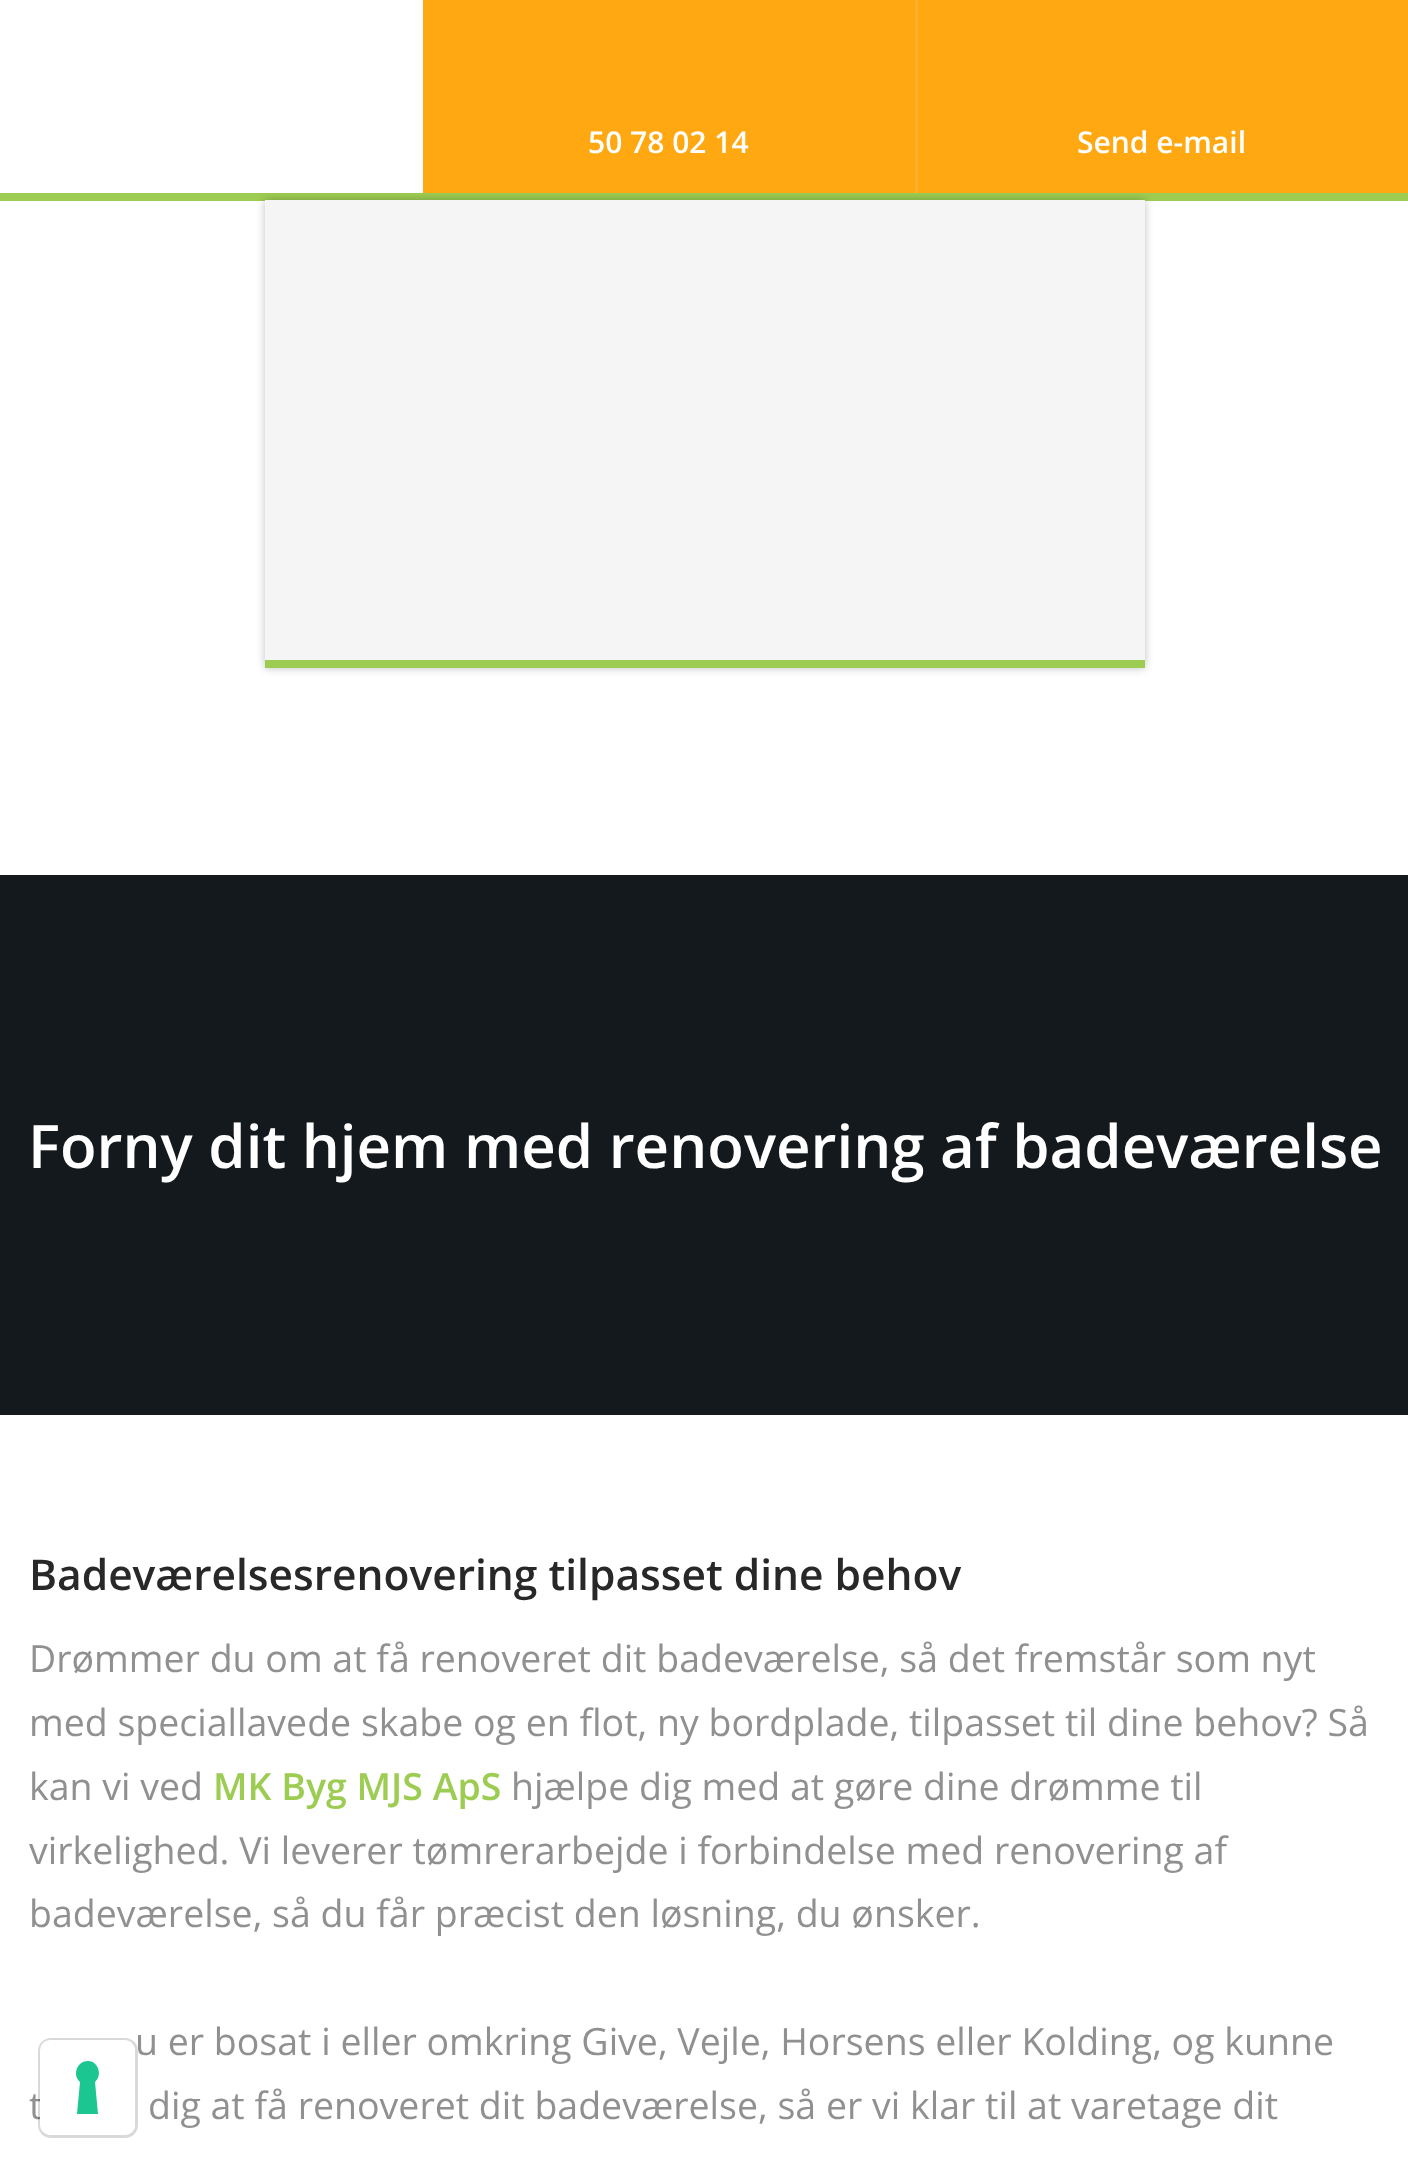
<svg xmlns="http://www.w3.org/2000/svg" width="1408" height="2173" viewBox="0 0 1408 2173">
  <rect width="100%" height="100%" fill="rgb(255,255,255)"/>
  <rect x="0" y="193" width="1408" height="8" fill="rgb(157,204,82)"/>
  <rect x="265" y="200" width="880" height="468" fill="rgba(0,0,0,0.25)" filter="blur(4px)"/>
  <rect x="423" y="0" width="492" height="193" fill="rgb(255,168,18)"/>
  <rect x="915" y="0" width="3" height="193" fill="rgb(255,177,42)"/>
  <text x="588" y="153" font-family="Open Sans" font-size="30" font-weight="600" fill="rgb(255,255,255)">50 78 02 14</text>
  <rect x="918" y="0" width="490" height="193" fill="rgb(255,168,18)"/>
  <text x="1077" y="153" font-family="Open Sans" font-size="30" font-weight="600" fill="rgb(255,255,255)">Send e-mail</text>
  <rect x="265" y="200" width="880" height="460" fill="rgb(245,245,245)"/>
  <rect x="265" y="660" width="880" height="8" fill="rgb(157,204,82)"/>
  <rect x="0" y="875" width="1408" height="540" fill="rgb(19,25,28)"/>
  <text x="28" y="1168" font-family="Open Sans" font-size="60" font-weight="600" fill="rgb(255,255,255)">Forny dit hjem med renovering af badeværelse</text>
  <text x="29" y="1590" font-family="Open Sans" font-size="42.5" font-weight="600" fill="rgb(40,40,40)">Badeværelsesrenovering tilpasset dine behov</text>
  <g font-family="Open Sans" font-size="37.5" fill="rgb(144,144,144)">
    <text>
      <tspan x="29" y="1672">Drømmer du om at få renoveret dit badeværelse, så det fremstår som nyt</tspan>
      <tspan x="29" y="1736">med speciallavede skabe og en flot, ny bordplade, tilpasset til dine behov? Så</tspan>
      <tspan x="29" y="1800">kan vi ved</tspan>
    </text>
  </g>
  <text x="213" y="1800" font-family="Open Sans" font-size="37.5" font-weight="600" fill="rgb(157,204,82)">MK Byg MJS ApS</text>
  <g font-family="Open Sans" font-size="37.5" fill="rgb(144,144,144)">
    <text x="511" y="1800">hjælpe dig med at gøre dine drømme til</text>
    <text>
      <tspan x="29" y="1864">virkelighed. Vi leverer tømrerarbejde i forbindelse med renovering af</tspan>
      <tspan x="29" y="1927">badeværelse, så du får præcist den løsning, du ønsker.</tspan>
    </text>
    <text x="135" y="2055">u er bosat i eller omkring Give, Vejle, Horsens eller Kolding, og kunne</text>
    <text x="29" y="2119">t</text>
    <text x="148" y="2119">dig at få renoveret dit badeværelse, så er vi klar til at varetage dit</text>
  </g>
  <rect x="39.5" y="2039.5" width="97" height="97" rx="11.5" fill="none" stroke="rgba(0,0,0,0.15)" stroke-width="3"/>
  <rect x="40" y="2040" width="95" height="95" rx="10" fill="rgb(255,255,255)"/>
  <path d="M88 2061C98 2061 103 2075 95 2082L98 2114H77L80 2082C72 2075 77 2061 88 2061Z" fill="rgb(28,198,145)" fill-rule="evenodd"/>
</svg>
